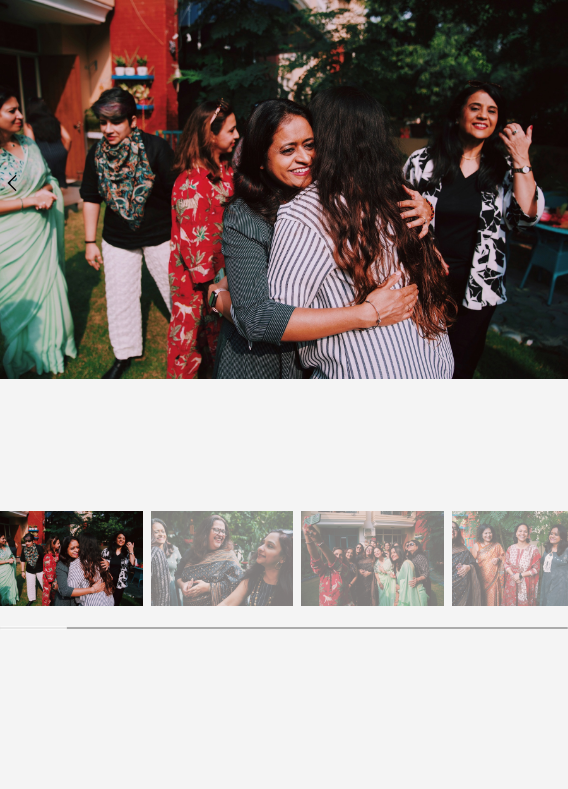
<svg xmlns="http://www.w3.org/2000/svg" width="568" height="789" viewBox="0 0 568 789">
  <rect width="100%" height="100%" fill="rgb(244,244,244)"/>
  <image x="0" y="0" width="568" height="379" href="pic1.png"/>
  <image x="7" y="175" width="10" height="17" href="pic2.png"/>
  <image x="0" y="511" width="143" height="95" href="pic3.png"/>
  <image x="151" y="511" width="142" height="95" href="pic4.png"/>
  <image x="301" y="511" width="143" height="95" href="pic5.png"/>
  <image x="452" y="511" width="116" height="95" href="pic6.png"/>
  <rect x="0" y="627" width="568" height="2" rx="1" fill="rgb(171,171,171)"/>
  <rect x="0" y="626" width="67" height="4" rx="2" fill="rgba(252,252,252,0.75)"/>
</svg>
